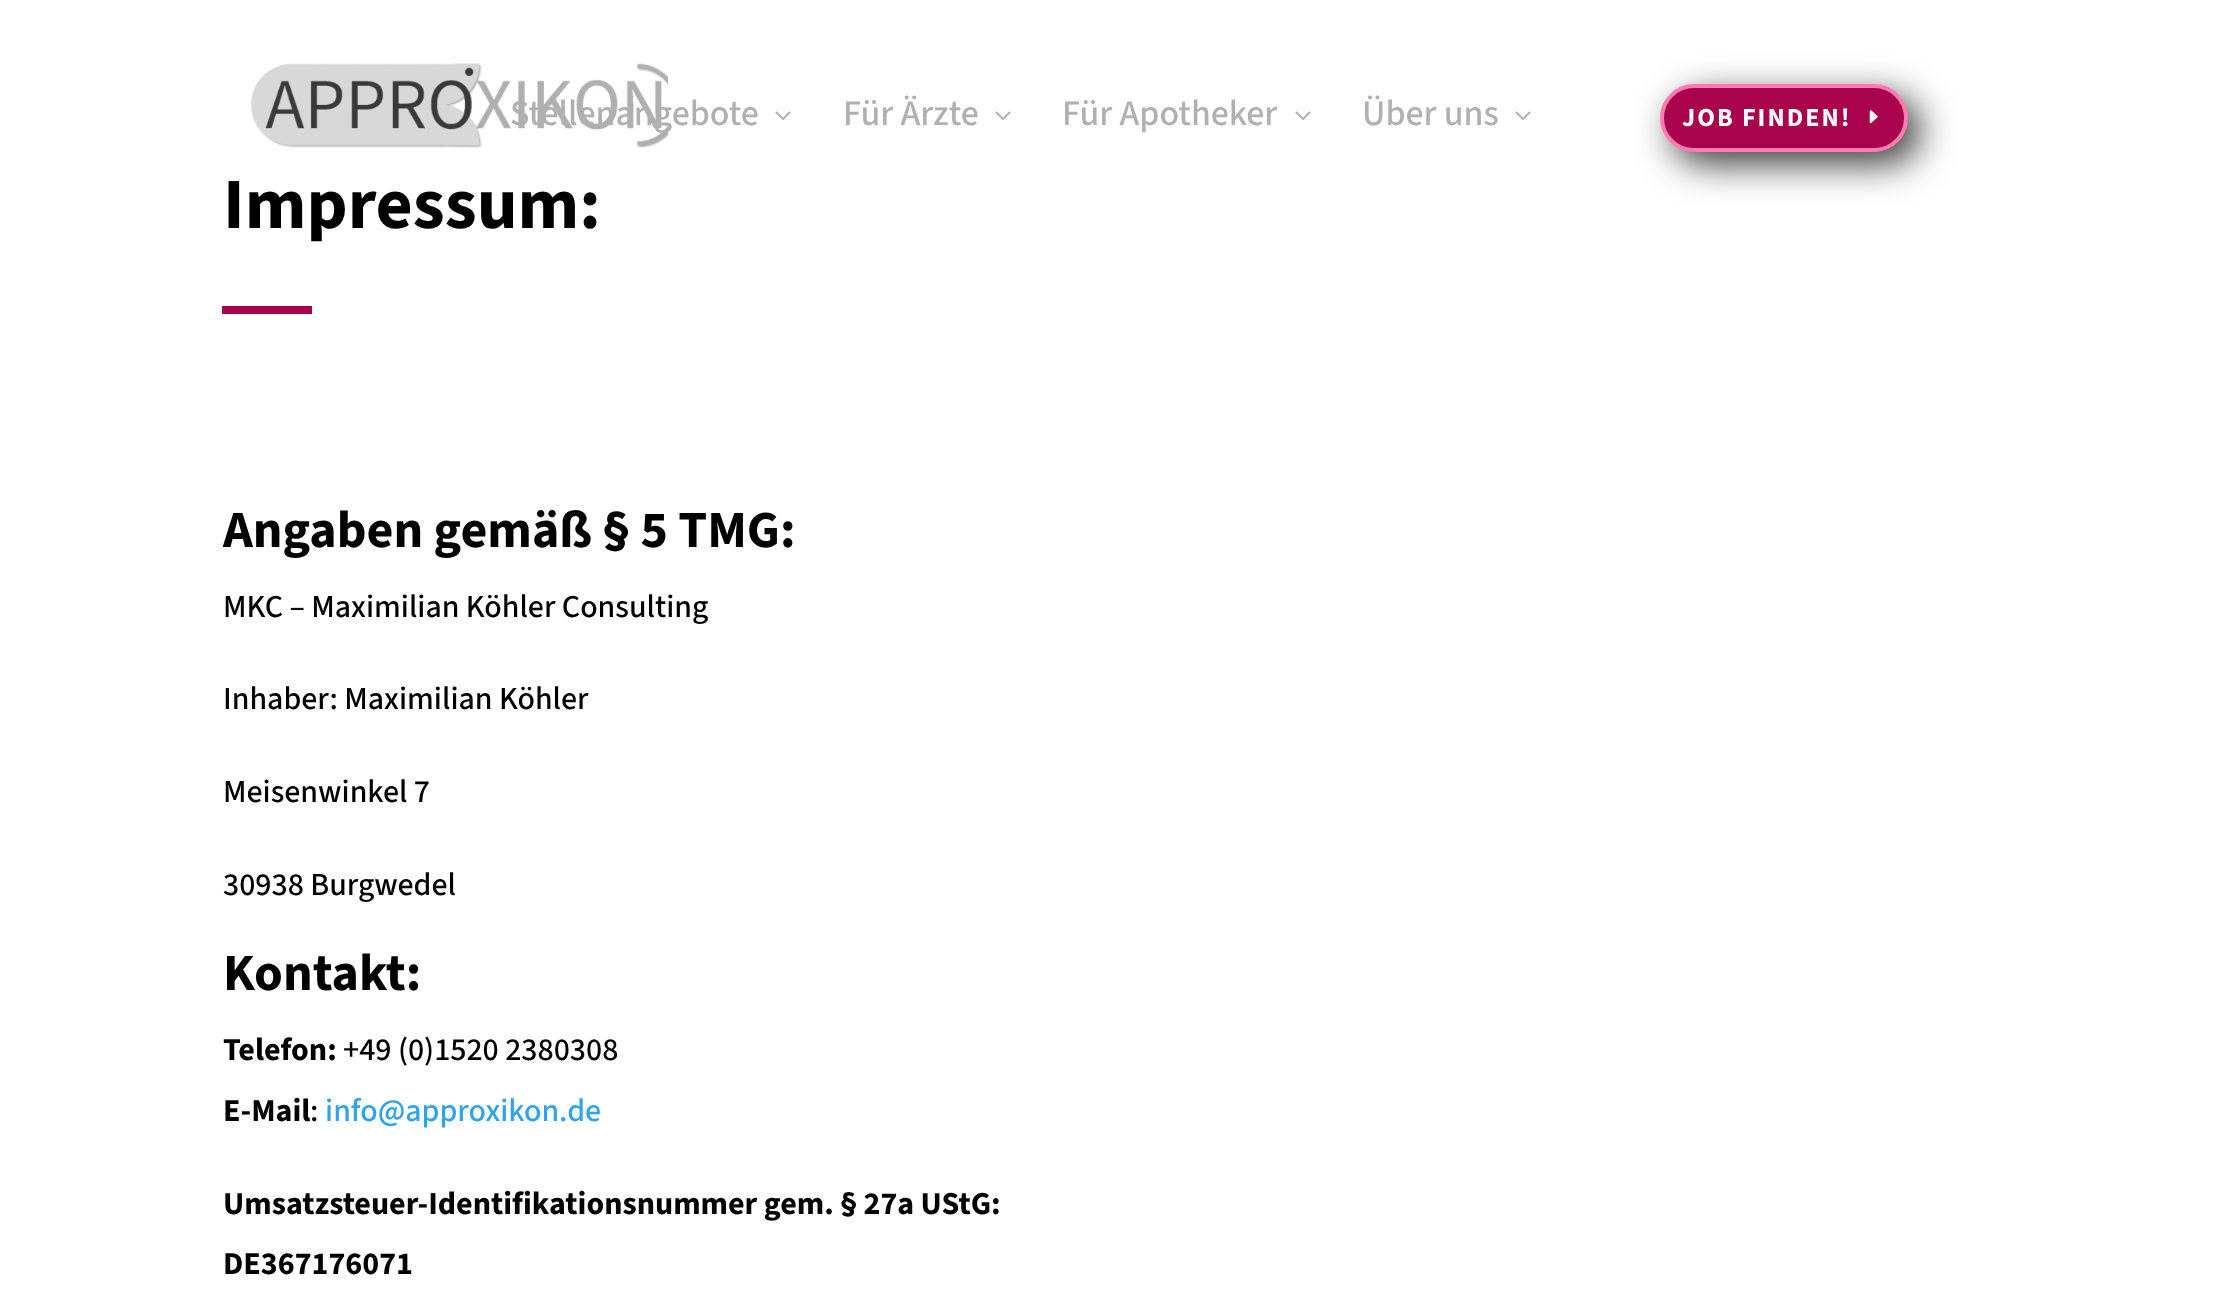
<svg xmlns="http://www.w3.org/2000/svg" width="2228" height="1290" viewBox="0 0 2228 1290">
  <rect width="100%" height="100%" fill="rgb(255,255,255)"/>
  <image x="251" y="63" width="417" height="85" href="pic1.png"/>
  <text x="510" y="125" font-family="'Source Sans 3'" font-size="36" font-weight="500" fill="rgb(176,176,176)">Stellenangebote</text>
  <image x="775" y="111" width="16" height="9" href="pic2.png"/>
  <text x="843" y="125" font-family="'Source Sans 3'" font-size="36" font-weight="500" fill="rgb(176,176,176)">Für Ärzte</text>
  <image x="995" y="111" width="16" height="9" href="pic2.png"/>
  <text x="1062" y="125" font-family="'Source Sans 3'" font-size="36" font-weight="500" fill="rgb(176,176,176)">Für Apotheker</text>
  <image x="1295" y="111" width="16" height="9" href="pic2.png"/>
  <text x="1362" y="125" font-family="'Source Sans 3'" font-size="36" font-weight="500" fill="rgb(176,176,176)">Über uns</text>
  <image x="1515" y="111" width="16" height="9" href="pic2.png"/>
  <rect x="1672" y="96" width="248" height="68" rx="34" fill="rgb(58,58,58)" filter="blur(18px)"/>
  <rect x="1662" y="86" width="244" height="64" rx="32" fill="rgb(170,3,78)" stroke="rgb(253,123,181)" stroke-width="4"/>
  <text x="1682" y="126" font-family="'Source Sans 3'" font-size="26" font-weight="bold" letter-spacing="2" fill="rgb(255,255,255)">JOB FINDEN!</text>
  <image x="1869" y="110" width="9" height="14" href="pic3.png"/>
  <text x="223" y="228" font-family="'Source Sans 3'" font-size="72" font-weight="bold" fill="rgb(0,0,0)">Impressum:</text>
  <rect x="222" y="306" width="90" height="8" fill="rgb(170,3,78)"/>
  <text x="223" y="547" font-family="'Source Sans 3'" font-size="52" font-weight="bold" fill="rgb(0,0,0)">Angaben gemäß § 5 TMG:</text>
  <g font-family="'Source Sans 3'" font-size="32" font-weight="500" fill="rgb(0,0,0)">
    <text x="223" y="617">MKC – Maximilian Köhler Consulting</text>
    <text x="223" y="709">Inhaber: Maximilian Köhler</text>
    <text x="223" y="802">Meisenwinkel 7</text>
    <text x="223" y="895">30938 Burgwedel</text>
  </g>
  <text x="223" y="990" font-family="'Source Sans 3'" font-size="52" font-weight="bold" fill="rgb(0,0,0)">Kontakt:</text>
  <text x="223" y="1060" font-family="'Source Sans 3'" font-size="32" font-weight="bold" fill="rgb(0,0,0)">Telefon:</text>
  <text x="343" y="1060" font-family="'Source Sans 3'" font-size="32" font-weight="500" fill="rgb(0,0,0)">+49 (0)1520 2380308</text>
  <text x="223" y="1121" font-family="'Source Sans 3'" font-size="32" font-weight="bold" fill="rgb(0,0,0)">E-Mail</text>
  <text x="310" y="1121" font-family="'Source Sans 3'" font-size="32" font-weight="500" fill="rgb(0,0,0)">:</text>
  <text x="325" y="1121" font-family="'Source Sans 3'" font-size="32" font-weight="500" fill="rgb(46,163,242)">info@approxikon.de</text>
  <g font-family="'Source Sans 3'" font-size="32" font-weight="bold" fill="rgb(0,0,0)">
    <text>
      <tspan x="223" y="1214">Umsatzsteuer-Identifikationsnummer gem. § 27a UStG:</tspan>
      <tspan x="223" y="1274">DE367176071</tspan>
    </text>
  </g>
</svg>
